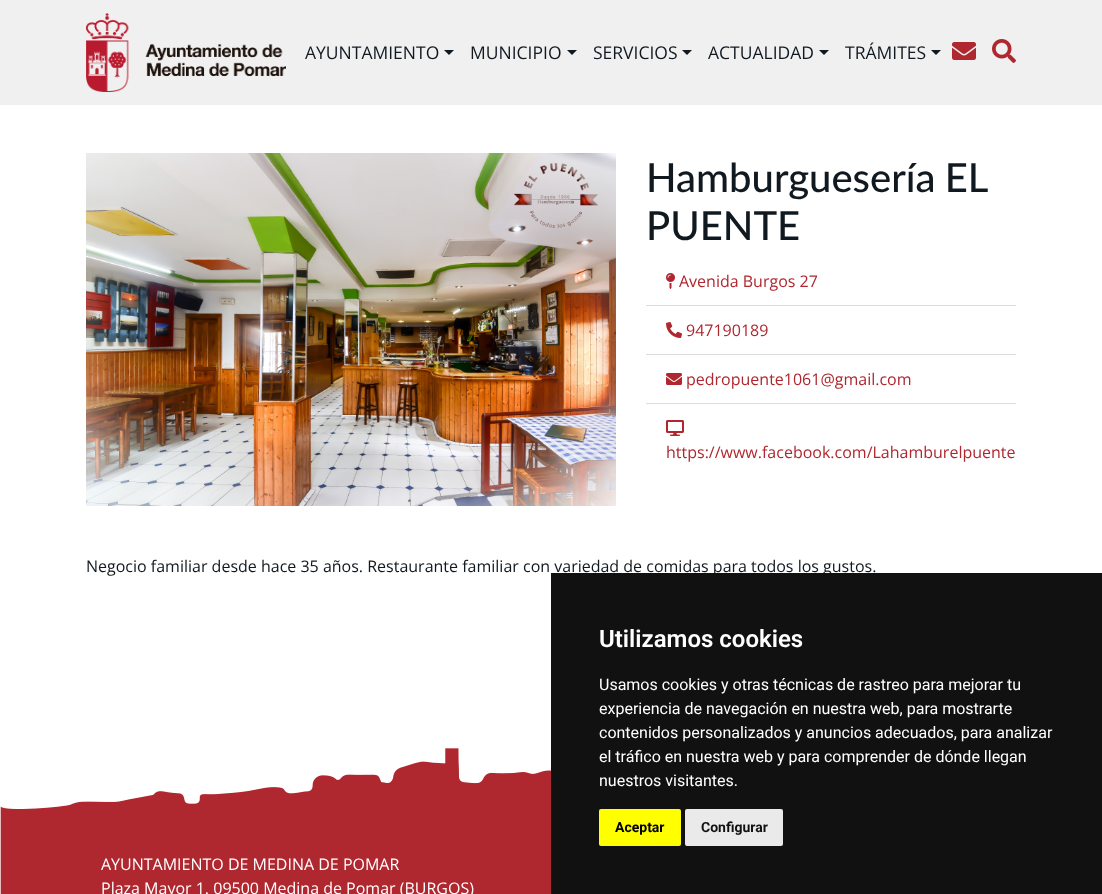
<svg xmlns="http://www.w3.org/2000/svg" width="1102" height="894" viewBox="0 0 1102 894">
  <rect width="100%" height="100%" fill="rgb(255,255,255)"/>
  <rect x="0" y="0" width="1102" height="105" fill="rgb(240,240,240)"/>
  <image x="86" y="13" width="200" height="79" href="pic1.png"/>
  <text x="305" y="59" font-family="Open Sans" font-size="17.5" fill="rgb(16,24,32)">AYUNTAMIENTO</text>
  <path d="M444 50H454L449 55Z" fill="rgb(16,24,32)"/>
  <text x="470" y="59" font-family="Open Sans" font-size="17.5" fill="rgb(16,24,32)">MUNICIPIO</text>
  <path d="M567 50H577L572 55Z" fill="rgb(16,24,32)"/>
  <text x="593" y="59" font-family="Open Sans" font-size="17.5" fill="rgb(16,24,32)">SERVICIOS</text>
  <path d="M682 50H692L687 55Z" fill="rgb(16,24,32)"/>
  <text x="708" y="59" font-family="Open Sans" font-size="17.5" fill="rgb(16,24,32)">ACTUALIDAD</text>
  <path d="M819 50H829L824 55Z" fill="rgb(16,24,32)"/>
  <text x="845" y="59" font-family="Open Sans" font-size="17.5" fill="rgb(16,24,32)">TRÁMITES</text>
  <path d="M931 50H941L936 55Z" fill="rgb(16,24,32)"/>
  <image x="952" y="42" width="24" height="18" href="pic2.png"/>
  <image x="992" y="39" width="24" height="24" href="pic3.png"/>
  <image x="86" y="153" width="530" height="353" href="pic4.png"/>
  <g font-family="Lato" font-size="40" font-weight="500" fill="rgb(16,24,32)">
    <text>
      <tspan x="646" y="192" word-spacing="-1">Hamburguesería EL</tspan>
      <tspan x="646" y="240">PUENTE</tspan>
    </text>
  </g>
  <rect x="646" y="305" width="370" height="1" fill="rgb(221,221,221)"/>
  <image x="666" y="273" width="9" height="16" href="pic5.png"/>
  <text x="679" y="287" font-family="Open Sans" font-size="16" fill="rgb(175,39,47)">Avenida Burgos 27</text>
  <rect x="646" y="354" width="370" height="1" fill="rgb(221,221,221)"/>
  <image x="666" y="322" width="16" height="16" href="pic6.png"/>
  <text x="686" y="336" font-family="Open Sans" font-size="16" fill="rgb(175,39,47)">947190189</text>
  <rect x="646" y="403" width="370" height="1" fill="rgb(221,221,221)"/>
  <image x="666" y="373" width="16" height="12" href="pic7.png"/>
  <text x="686" y="385" font-family="Open Sans" font-size="16" fill="rgb(175,39,47)">pedropuente1061@gmail.com</text>
  <image x="666" y="420" width="18" height="16" href="pic8.png"/>
  <text x="666" y="458" font-family="Open Sans" font-size="16" fill="rgb(175,39,47)">https://www.facebook.com/Lahamburelpuente</text>
  <text x="86" y="572" font-family="Open Sans" font-size="16" fill="rgb(16,24,32)">Negocio familiar desde hace 35 años. Restaurante familiar con variedad de comidas para todos los gustos.</text>
  <image x="0" y="748" width="551" height="146" href="pic9.png"/>
  <g font-family="Open Sans" font-size="16" fill="rgb(255,255,255)">
    <text>
      <tspan x="101" y="870">AYUNTAMIENTO DE MEDINA DE POMAR</tspan>
      <tspan x="101" y="894">Plaza Mayor 1. 09500 Medina de Pomar (BURGOS)</tspan>
    </text>
  </g>
  <rect x="551" y="573" width="551" height="321" fill="rgb(17,17,17)"/>
  <text x="599" y="647" font-family="Roboto" font-size="24" font-weight="600" fill="rgb(255,255,255)">Utilizamos cookies</text>
  <g font-family="Roboto" font-size="16" fill="rgb(255,255,255)">
    <text>
      <tspan x="599" y="690">Usamos cookies y otras técnicas de rastreo para mejorar tu</tspan>
      <tspan x="599" y="714">experiencia de navegación en nuestra web, para mostrarte</tspan>
      <tspan x="599" y="738">contenidos personalizados y anuncios adecuados, para analizar</tspan>
      <tspan x="599" y="762">el tráfico en nuestra web y para comprender de dónde llegan</tspan>
      <tspan x="599" y="786">nuestros visitantes.</tspan>
    </text>
  </g>
  <rect x="599" y="809" width="82" height="37" rx="2" fill="rgb(255,255,0)"/>
  <text x="615" y="832" font-family="Roboto" font-size="14" font-weight="bold" fill="rgb(0,0,0)">Aceptar</text>
  <rect x="685" y="809" width="98" height="37" rx="2" fill="rgb(234,234,234)"/>
  <text x="701" y="832" font-family="Roboto" font-size="14" font-weight="bold" fill="rgb(17,17,17)">Configurar</text>
</svg>
